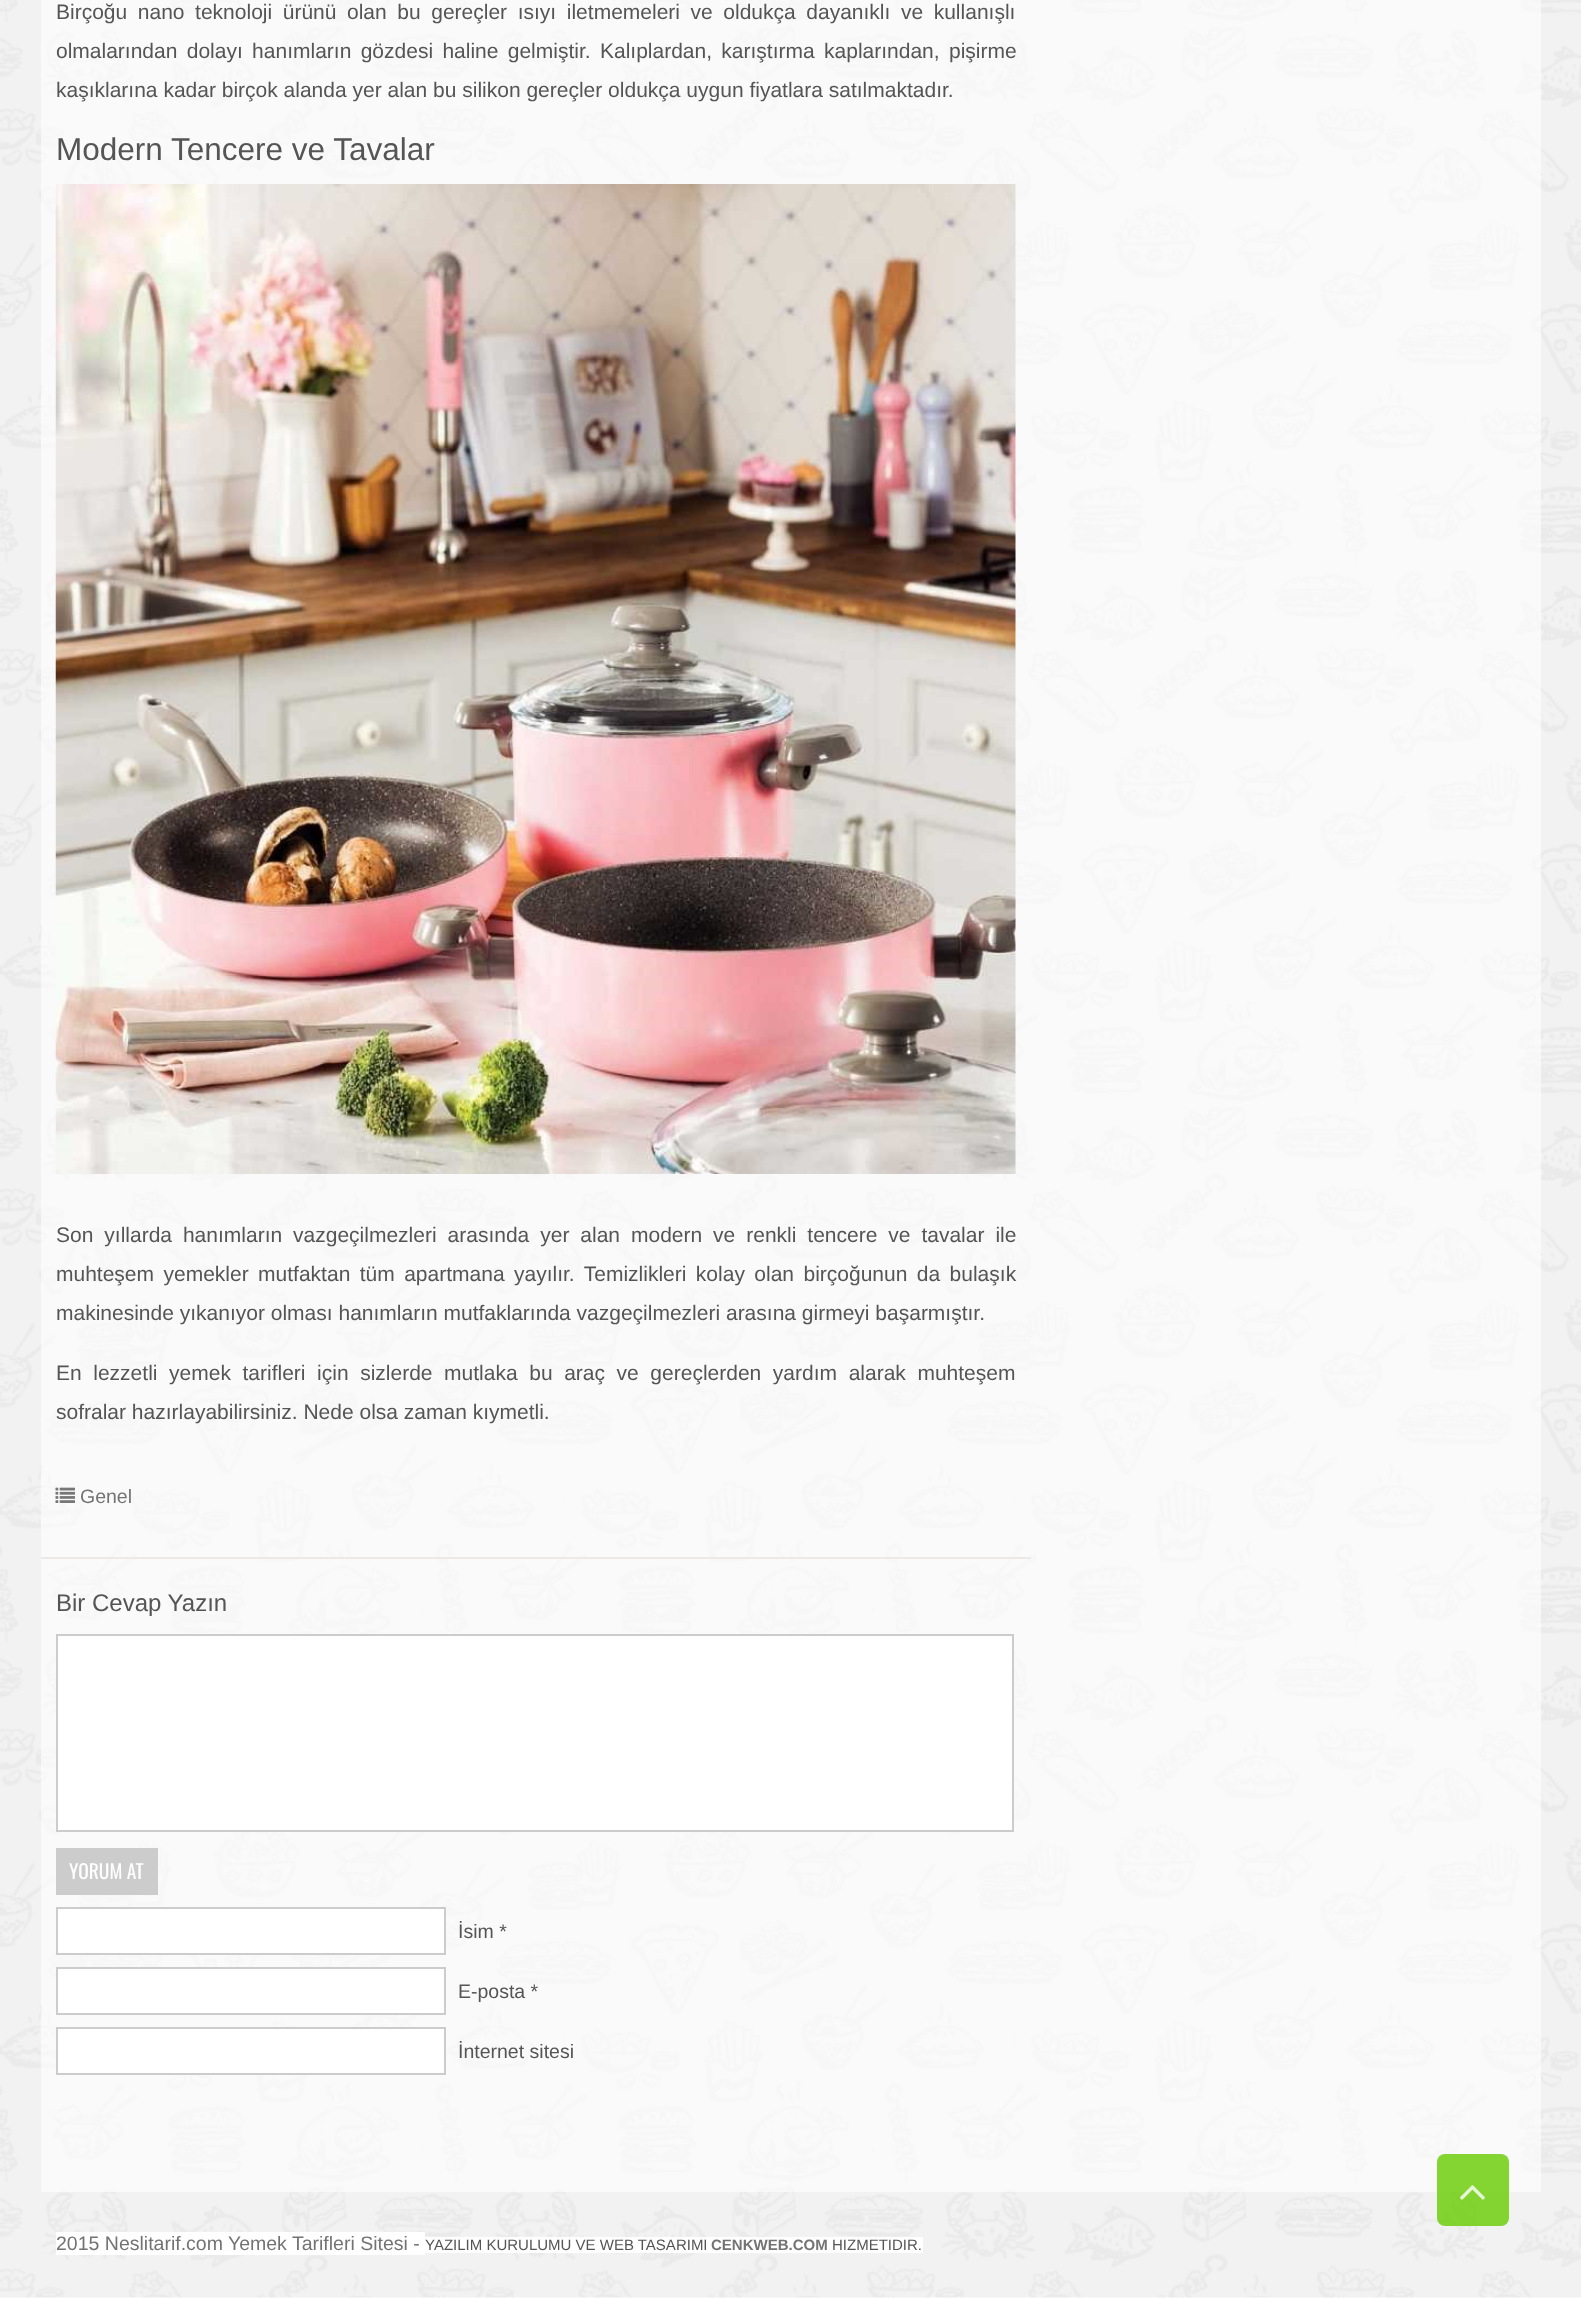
<svg xmlns="http://www.w3.org/2000/svg" width="1581" height="2298" viewBox="0 0 1581 2298">
  <rect width="100%" height="100%" fill="rgb(255,255,255)"/>
  <image x="0" y="0" width="1581" height="2298" href="pic1.png"/>
  <rect x="41" y="1557" width="990" height="2" fill="rgb(235,234,229)"/>
  <g font-family="Liberation Sans" font-size="21" fill="rgb(85,85,85)">
    <text>
      <tspan x="56" y="19" word-spacing="4.75">Birçoğu nano teknoloji ürünü olan bu gereçler ısıyı iletmemeleri ve oldukça dayanıklı ve kullanışlı</tspan>
      <tspan x="56" y="58" word-spacing="3.5">olmalarından dolayı hanımların gözdesi haline gelmiştir. Kalıplardan, karıştırma kaplarından, pişirme</tspan>
      <tspan x="56" y="97">kaşıklarına kadar birçok alanda yer alan bu silikon gereçler oldukça uygun fiyatlara satılmaktadır.</tspan>
    </text>
  </g>
  <text x="56" y="160" font-family="Liberation Sans" font-size="31.5" fill="rgb(85,85,85)">Modern Tencere ve Tavalar</text>
  <image x="55" y="184" width="961" height="990" href="pic2.png"/>
  <g font-family="Liberation Sans" font-size="21" fill="rgb(85,85,85)">
    <text>
      <tspan x="56" y="1242" word-spacing="5.1">Son yıllarda hanımların vazgeçilmezleri arasında yer alan modern ve renkli tencere ve tavalar ile</tspan>
      <tspan x="56" y="1281" word-spacing="3.6">muhteşem yemekler mutfaktan tüm apartmana yayılır. Temizlikleri kolay olan birçoğunun da bulaşık</tspan>
      <tspan x="56" y="1320">makinesinde yıkanıyor olması hanımların mutfaklarında vazgeçilmezleri arasına girmeyi başarmıştır.</tspan>
    </text>
    <text>
      <tspan x="56" y="1380" word-spacing="5.75">En lezzetli yemek tarifleri için sizlerde mutlaka bu araç ve gereçlerden yardım alarak muhteşem</tspan>
      <tspan x="56" y="1419">sofralar hazırlayabilirsiniz. Nede olsa zaman kıymetli.</tspan>
    </text>
  </g>
  <image x="55" y="1487" width="20" height="16" href="pic3.png"/>
  <text x="80" y="1503" font-family="Liberation Sans" font-size="19.5" fill="rgb(115,115,115)">Genel</text>
  <text x="56" y="1611" font-family="Liberation Sans" font-size="24" fill="rgb(85,85,85)">Bir Cevap Yazın</text>
  <rect x="57" y="1635" width="956" height="196" fill="rgb(255,255,255)" stroke="rgb(204,204,204)" stroke-width="2"/>
  <rect x="56" y="1848" width="102" height="47" fill="rgb(204,204,204)"/>
  <text x="69" y="1879" font-family="Oswald" font-size="19.5" fill="rgb(255,255,255)">YORUM AT</text>
  <rect x="57" y="1908" width="388" height="46" fill="rgb(255,255,255)" stroke="rgb(204,204,204)" stroke-width="2"/>
  <text x="458" y="1938" font-family="Liberation Sans" font-size="19.5" fill="rgb(85,85,85)">İsim *</text>
  <rect x="57" y="1968" width="388" height="46" fill="rgb(255,255,255)" stroke="rgb(204,204,204)" stroke-width="2"/>
  <text x="458" y="1998" font-family="Liberation Sans" font-size="19.5" fill="rgb(85,85,85)">E-posta *</text>
  <rect x="57" y="2028" width="388" height="46" fill="rgb(255,255,255)" stroke="rgb(204,204,204)" stroke-width="2"/>
  <text x="458" y="2058" font-family="Liberation Sans" font-size="19.5" fill="rgb(85,85,85)">İnternet sitesi</text>
  <rect x="1437" y="2154" width="72" height="72" rx="8" fill="rgba(102,204,0,0.8)"/>
  <image x="1460" y="2185" width="25" height="15" href="pic4.png"/>
  <rect x="56" y="2232" width="369" height="23" fill="rgb(255,255,255)"/>
  <text x="56" y="2250" font-family="Liberation Sans" font-size="19.5" fill="rgb(115,115,115)">2015 Neslitarif.com Yemek Tarifleri Sitesi -</text>
  <rect x="425" y="2237" width="498" height="16" fill="rgb(255,255,255)"/>
  <text x="425" y="2250" font-family="Liberation Sans" font-size="15" fill="rgb(85,85,85)">YAZILIM KURULUMU VE WEB TASARIMI</text>
  <text x="711" y="2250" font-family="Liberation Sans" font-size="15" font-weight="bold" fill="rgb(115,115,115)">CENKWEB.COM</text>
  <text x="832" y="2250" font-family="Liberation Sans" font-size="15" fill="rgb(85,85,85)">HIZMETIDIR.</text>
</svg>
